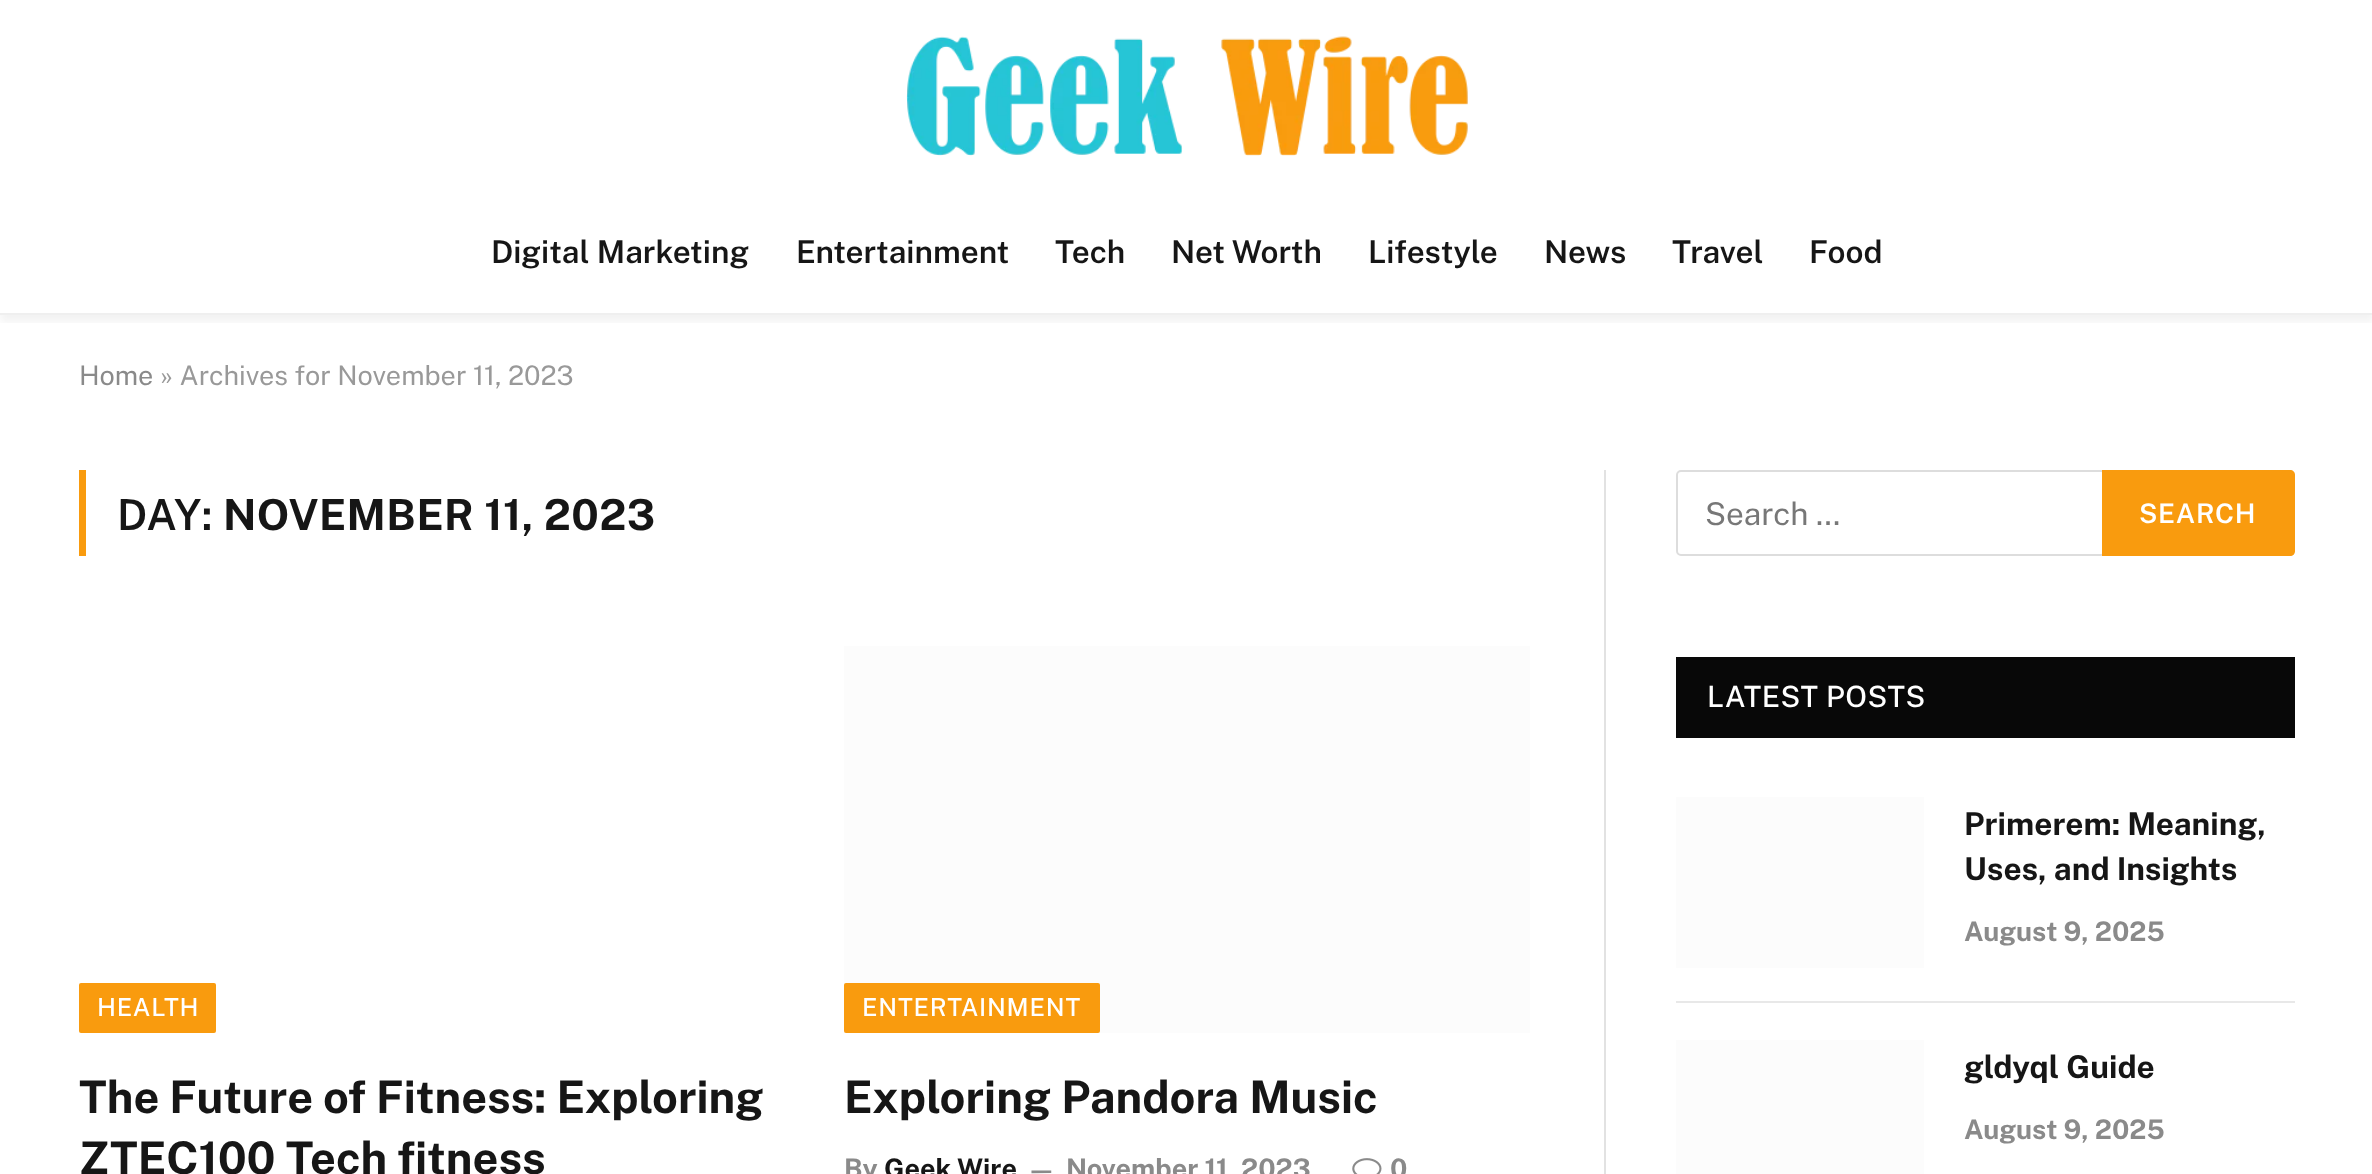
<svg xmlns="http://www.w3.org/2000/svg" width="2372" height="1174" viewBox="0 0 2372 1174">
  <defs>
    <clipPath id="clip1"><rect x="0" y="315" width="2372" height="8"/></clipPath>
  </defs>
  <rect width="100%" height="100%" fill="rgb(255,255,255)"/>
  <g clip-path="url(#clip1)">
    <rect x="0" y="7" width="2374" height="315" fill="rgba(0,0,0,0.05)" filter="blur(4.5px)"/>
  </g>
  <image x="906" y="36" width="562" height="120" href="pic1.png"/>
  <rect x="0" y="313" width="2372" height="2" fill="rgb(239,239,239)"/>
  <g font-family="Public Sans" font-size="31.5" font-weight="600" fill="rgb(22,22,22)">
    <text x="491" y="263">Digital Marketing</text>
    <text x="796" y="263">Entertainment</text>
    <text x="1055" y="263">Tech</text>
    <text x="1171" y="263">Net Worth</text>
    <text x="1368" y="263">Lifestyle</text>
    <text x="1544" y="263">News</text>
    <text x="1672" y="263">Travel</text>
    <text x="1809" y="263">Food</text>
  </g>
  <text x="79" y="385" font-family="Public Sans" font-size="27" fill="rgb(138,138,138)">Home</text>
  <text x="160" y="385" font-family="Public Sans" font-size="27" fill="rgb(153,153,153)">» Archives for November 11, 2023</text>
  <rect x="79" y="470" width="7" height="86" fill="rgb(249,155,14)"/>
  <text x="117" y="530" font-family="Public Sans" font-size="42.75" font-weight="600" letter-spacing="0.4" fill="rgb(22,22,22)">DAY:</text>
  <text x="223" y="530" font-family="Public Sans" font-size="42.75" font-weight="bold" letter-spacing="0.4" fill="rgb(22,22,22)">NOVEMBER 11, 2023</text>
  <rect x="79" y="983" width="137" height="50" rx="2" fill="rgb(249,155,14)"/>
  <text x="97" y="1016" font-family="Public Sans" font-size="24.75" font-weight="500" letter-spacing="0.75" fill="rgb(255,255,255)">HEALTH</text>
  <g font-family="Public Sans" font-size="45" font-weight="bold" fill="rgb(22,22,22)">
    <text>
      <tspan x="79" y="1113">The Future of Fitness: Exploring</tspan>
      <tspan x="79" y="1174">ZTEC100 Tech fitness</tspan>
    </text>
  </g>
  <rect x="844" y="646" width="686" height="387" fill="rgb(252,252,252)"/>
  <rect x="844" y="983" width="256" height="50" rx="2" fill="rgb(249,155,14)"/>
  <text x="862" y="1016" font-family="Public Sans" font-size="24.75" font-weight="500" letter-spacing="0.75" fill="rgb(255,255,255)">ENTERTAINMENT</text>
  <text x="844" y="1113" font-family="Public Sans" font-size="45" font-weight="bold" fill="rgb(22,22,22)">Exploring Pandora Music</text>
  <text x="844" y="1178" font-family="Public Sans" font-size="27" font-weight="bold" fill="rgb(138,138,138)">By</text>
  <text x="884" y="1178" font-family="Public Sans" font-size="27" font-weight="bold" fill="rgb(22,22,22)">Geek Wire</text>
  <text x="1027" y="1178" font-family="Public Sans" font-size="25" font-weight="bold" fill="rgb(138,138,138)">—</text>
  <text x="1066" y="1178" font-family="Public Sans" font-size="27" font-weight="bold" fill="rgb(138,138,138)">November 11, 2023</text>
  <image x="1352" y="1158" width="30" height="16" href="pic2.png"/>
  <text x="1390" y="1178" font-family="Public Sans" font-size="27" font-weight="bold" fill="rgb(138,138,138)">0</text>
  <rect x="1604" y="470" width="2" height="704" fill="rgb(226,226,226)"/>
  <rect x="1677" y="471" width="428" height="84" rx="4" fill="none" stroke="rgb(221,221,221)" stroke-width="2"/>
  <text x="1705" y="525" font-family="Public Sans" font-size="31.5" fill="rgb(119,119,119)">Search …</text>
  <path d="M2102 470H2290C2293 470 2295 472 2295 475V551C2295 554 2293 556 2290 556H2102Z" fill="rgb(249,155,14)"/>
  <text x="2139" y="523" font-family="Public Sans" font-size="27" font-weight="600" letter-spacing="0.75" fill="rgb(255,255,255)">SEARCH</text>
  <rect x="1676" y="657" width="619" height="81" fill="rgb(8,8,8)"/>
  <text x="1707" y="707" font-family="Public Sans" font-size="29.25" font-weight="500" letter-spacing="0.5" fill="rgb(255,255,255)">LATEST POSTS</text>
  <rect x="1676" y="797" width="248" height="171" fill="rgb(252,252,252)"/>
  <g font-family="Public Sans" font-size="31.5" font-weight="bold" fill="rgb(22,22,22)">
    <text>
      <tspan x="1964" y="835">Primerem: Meaning,</tspan>
      <tspan x="1964" y="880">Uses, and Insights</tspan>
    </text>
  </g>
  <text x="1964" y="941" font-family="Public Sans" font-size="27" font-weight="bold" fill="rgb(138,138,138)">August 9, 2025</text>
  <rect x="1676" y="1001" width="619" height="2" fill="rgb(232,232,232)"/>
  <rect x="1676" y="1040" width="248" height="134" fill="rgb(252,252,252)"/>
  <text x="1964" y="1078" font-family="Public Sans" font-size="31.5" font-weight="bold" fill="rgb(22,22,22)">gldyql Guide</text>
  <text x="1964" y="1139" font-family="Public Sans" font-size="27" font-weight="bold" fill="rgb(138,138,138)">August 9, 2025</text>
</svg>
